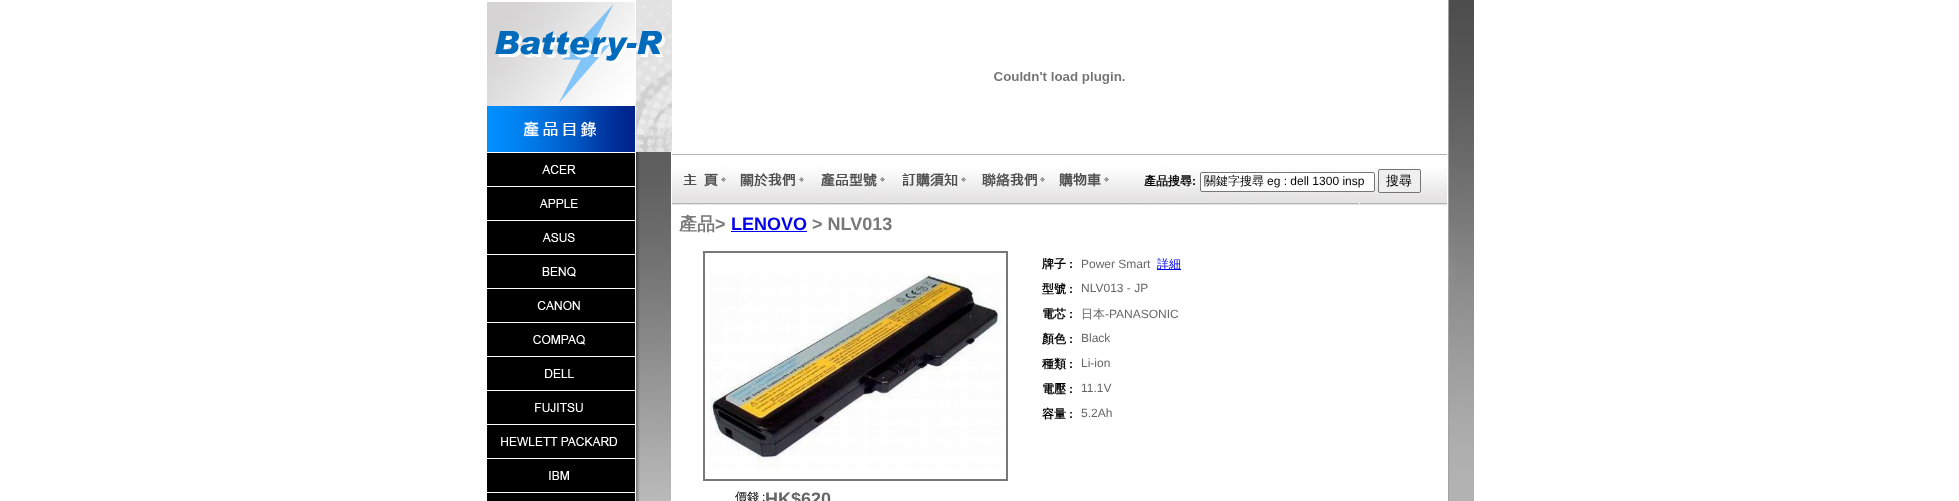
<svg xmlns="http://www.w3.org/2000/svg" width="1959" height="501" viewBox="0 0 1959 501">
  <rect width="100%" height="100%" fill="rgb(255,255,255)"/>
  <image x="487" y="0" width="185" height="152" href="pic1.png"/>
  <image x="487" y="153" width="148" height="33" href="pic2.png"/>
  <image x="636" y="152" width="35" height="349" href="pic3.png"/>
  <image x="487" y="187" width="148" height="33" href="pic4.png"/>
  <image x="487" y="221" width="148" height="33" href="pic5.png"/>
  <image x="487" y="255" width="148" height="33" href="pic6.png"/>
  <image x="487" y="289" width="148" height="33" href="pic7.png"/>
  <image x="487" y="323" width="148" height="33" href="pic8.png"/>
  <image x="487" y="357" width="148" height="33" href="pic9.png"/>
  <image x="487" y="391" width="148" height="33" href="pic10.png"/>
  <image x="487" y="425" width="148" height="33" href="pic11.png"/>
  <image x="487" y="459" width="148" height="33" href="pic12.png"/>
  <rect x="487" y="493" width="148" height="8" fill="rgb(0,0,0)"/>
  <image x="994" y="72" width="131" height="12" href="pic13.png"/>
  <image x="672" y="154" width="775" height="51" href="pic14.png"/>
  <image x="672" y="173" width="60" height="32" href="pic15.png"/>
  <image x="733" y="173" width="71" height="32" href="pic16.png"/>
  <image x="821" y="173" width="64" height="14" href="pic17.png"/>
  <image x="902" y="173" width="64" height="14" href="pic18.png"/>
  <image x="982" y="173" width="63" height="31" href="pic19.png"/>
  <image x="1059" y="173" width="50" height="14" href="pic20.png"/>
  <text x="1144" y="185" font-family="WenQuanYi Zen Hei" font-size="12" font-weight="bold" fill="rgb(0,0,0)">產品搜尋</text>
  <text x="1192" y="185" font-family="Liberation Sans" font-size="12" font-weight="bold" fill="rgb(0,0,0)">:</text>
  <rect x="1200.5" y="172.5" width="174" height="19" rx="1.5" fill="rgb(255,255,255)" stroke="rgb(118,118,118)"/>
  <text x="1204" y="185" font-family="WenQuanYi Zen Hei" font-size="12" font-weight="500" fill="rgb(0,0,0)">關鍵字搜尋</text>
  <text x="1267" y="185" font-family="Liberation Sans" font-size="12" fill="rgb(0,0,0)">eg : dell 1300 insp</text>
  <rect x="1378.5" y="169.5" width="42" height="23" rx="1.5" fill="rgb(239,239,239)" stroke="rgb(118,118,118)"/>
  <text x="1386" y="185" font-family="WenQuanYi Zen Hei" font-size="13" font-weight="500" fill="rgb(0,0,0)">搜尋</text>
  <text x="679" y="230" font-family="WenQuanYi Zen Hei" font-size="18" font-weight="bold" fill="rgb(120,120,120)">產品</text>
  <text x="715" y="230" font-family="Liberation Sans" font-size="18" font-weight="bold" fill="rgb(120,120,120)">&gt;</text>
  <text x="731" y="230" font-family="Liberation Sans" font-size="18" font-weight="bold" fill="rgb(0,0,238)">LENOVO</text>
  <rect x="731" y="231" width="76" height="1" fill="rgb(0,0,238)"/>
  <text x="812" y="230" font-family="Liberation Sans" font-size="18" font-weight="bold" fill="rgb(120,120,120)">&gt; NLV013</text>
  <rect x="703.5" y="251.5" width="304" height="229" fill="none" stroke="rgb(120,120,120)"/>
  <rect x="704.5" y="252.5" width="302" height="227" fill="none" stroke="rgb(120,120,120)"/>
  <image x="710" y="273" width="293" height="196" href="pic21.png"/>
  <text x="1042" y="268" font-family="WenQuanYi Zen Hei" font-size="12" font-weight="bold" fill="rgb(0,0,0)">牌子</text>
  <text x="1069" y="268" font-family="Liberation Sans" font-size="12" font-weight="bold" fill="rgb(0,0,0)">:</text>
  <text x="1081" y="268" font-family="Liberation Sans" font-size="12" fill="rgb(102,102,102)">Power Smart</text>
  <rect x="1157" y="269" width="24" height="1" fill="rgb(0,0,238)"/>
  <text x="1157" y="268" font-family="WenQuanYi Zen Hei" font-size="12" font-weight="500" fill="rgb(0,0,238)">詳細</text>
  <text x="1042" y="293" font-family="WenQuanYi Zen Hei" font-size="12" font-weight="bold" fill="rgb(0,0,0)">型號</text>
  <text x="1069" y="293" font-family="Liberation Sans" font-size="12" font-weight="bold" fill="rgb(0,0,0)">:</text>
  <text x="1081" y="292" font-family="Liberation Sans" font-size="12" fill="rgb(102,102,102)">NLV013 - JP</text>
  <text x="1042" y="318" font-family="WenQuanYi Zen Hei" font-size="12" font-weight="bold" fill="rgb(0,0,0)">電芯</text>
  <text x="1069" y="318" font-family="Liberation Sans" font-size="12" font-weight="bold" fill="rgb(0,0,0)">:</text>
  <text x="1081" y="318" font-family="WenQuanYi Zen Hei" font-size="12" font-weight="500" fill="rgb(102,102,102)">日本</text>
  <text x="1105" y="318" font-family="Liberation Sans" font-size="12" fill="rgb(102,102,102)">-PANASONIC</text>
  <text x="1042" y="343" font-family="WenQuanYi Zen Hei" font-size="12" font-weight="bold" fill="rgb(0,0,0)">顏色</text>
  <text x="1069" y="343" font-family="Liberation Sans" font-size="12" font-weight="bold" fill="rgb(0,0,0)">:</text>
  <text x="1081" y="342" font-family="Liberation Sans" font-size="12" fill="rgb(102,102,102)">Black</text>
  <text x="1042" y="368" font-family="WenQuanYi Zen Hei" font-size="12" font-weight="bold" fill="rgb(0,0,0)">種類</text>
  <text x="1069" y="368" font-family="Liberation Sans" font-size="12" font-weight="bold" fill="rgb(0,0,0)">:</text>
  <text x="1081" y="367" font-family="Liberation Sans" font-size="12" fill="rgb(102,102,102)">Li-ion</text>
  <text x="1042" y="393" font-family="WenQuanYi Zen Hei" font-size="12" font-weight="bold" fill="rgb(0,0,0)">電壓</text>
  <text x="1069" y="393" font-family="Liberation Sans" font-size="12" font-weight="bold" fill="rgb(0,0,0)">:</text>
  <text x="1081" y="392" font-family="Liberation Sans" font-size="12" fill="rgb(102,102,102)">11.1V</text>
  <text x="1042" y="418" font-family="WenQuanYi Zen Hei" font-size="12" font-weight="bold" fill="rgb(0,0,0)">容量</text>
  <text x="1069" y="418" font-family="Liberation Sans" font-size="12" font-weight="bold" fill="rgb(0,0,0)">:</text>
  <text x="1081" y="417" font-family="Liberation Sans" font-size="12" fill="rgb(102,102,102)">5.2Ah</text>
  <text x="735" y="501" font-family="WenQuanYi Zen Hei" font-size="12" font-weight="500" fill="rgb(0,0,0)">價錢</text>
  <text x="762" y="501" font-family="Liberation Sans" font-size="12" fill="rgb(0,0,0)">:</text>
  <text x="765" y="505" font-family="Liberation Sans" font-size="18" font-weight="bold" fill="rgb(102,102,102)">HK$620</text>
  <image x="1448" y="0" width="26" height="501" href="pic22.png"/>
</svg>
